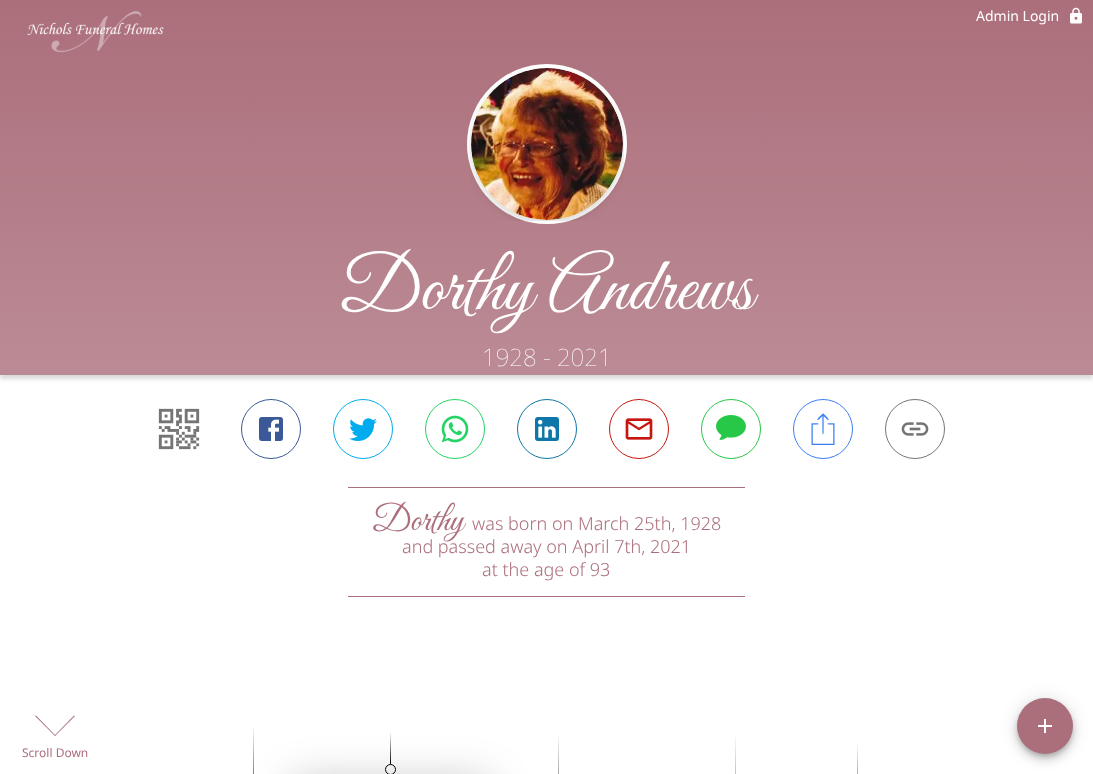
<svg xmlns="http://www.w3.org/2000/svg" width="1093" height="774" viewBox="0 0 1093 774">
  <defs>
    <linearGradient id="g1" gradientUnits="userSpaceOnUse" x1="547" y1="0" x2="547" y2="375"><stop offset="0" stop-color="rgb(171,111,123)"/><stop offset="1" stop-color="rgb(187,139,149)"/></linearGradient>
    <linearGradient id="g2" gradientUnits="userSpaceOnUse" x1="391" y1="732" x2="391" y2="764"><stop offset="0" stop-color="rgb(255,255,255)"/><stop offset="1" stop-color="rgb(0,0,0)"/></linearGradient>
    <linearGradient id="g3" gradientUnits="userSpaceOnUse" x1="254" y1="724" x2="254" y2="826"><stop offset="0" stop-color="rgb(255,255,255)"/><stop offset="1" stop-color="rgb(0,0,0)"/></linearGradient>
    <linearGradient id="g4" gradientUnits="userSpaceOnUse" x1="559" y1="732" x2="559" y2="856"><stop offset="0" stop-color="rgb(255,255,255)"/><stop offset="1" stop-color="rgb(0,0,0)"/></linearGradient>
    <linearGradient id="g5" gradientUnits="userSpaceOnUse" x1="736" y1="732" x2="736" y2="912"><stop offset="0" stop-color="rgb(255,255,255)"/><stop offset="1" stop-color="rgb(0,0,0)"/></linearGradient>
    <linearGradient id="g6" gradientUnits="userSpaceOnUse" x1="858" y1="742" x2="858" y2="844"><stop offset="0" stop-color="rgb(255,255,255)"/><stop offset="1" stop-color="rgb(0,0,0)"/></linearGradient>
  </defs>
  <rect width="100%" height="100%" fill="rgb(255,255,255)"/>
  <rect x="0" y="4" width="1093" height="375" fill="rgba(0,0,0,0.15)" filter="blur(2px)"/>
  <rect x="0" y="0" width="1093" height="375" fill="url(#g1)"/>
  <image x="27" y="11" width="137" height="42" href="pic1.png"/>
  <text x="976" y="21" font-family="Noto Sans" font-size="14" fill="rgb(255,255,255)">Admin Login</text>
  <image x="1070" y="7" width="12" height="17" href="pic2.png"/>
  <circle cx="547" cy="144" r="80" fill="rgb(255,255,255)"/>
  <image x="469" y="68" width="155" height="153" href="pic3.png"/>
  <text x="339" y="309" font-family="Great Vibes" font-size="76" fill="rgb(255,255,255)">Dorthy Andrews</text>
  <text x="482" y="366" font-family="Noto Sans" font-size="24" font-weight="100" fill="rgb(255,255,255)">1928 - 2021</text>
  <image x="158" y="408" width="42" height="42" href="pic4.png"/>
  <circle cx="271" cy="429" r="29.5" fill="none" stroke="rgb(59,89,152)"/>
  <image x="259" y="417" width="24" height="24" href="pic5.png"/>
  <circle cx="363" cy="429" r="29.5" fill="none" stroke="rgb(0,172,238)"/>
  <image x="349" y="418" width="28" height="23" href="pic6.png"/>
  <circle cx="455" cy="429" r="29.5" fill="none" stroke="rgb(37,211,102)"/>
  <image x="441" y="415" width="28" height="28" href="pic7.png"/>
  <circle cx="547" cy="429" r="29.5" fill="none" stroke="rgb(14,118,168)"/>
  <image x="535" y="417" width="24" height="24" href="pic8.png"/>
  <circle cx="639" cy="429" r="29.5" fill="none" stroke="rgb(199,22,16)"/>
  <image x="625" y="418" width="28" height="22" href="pic9.png"/>
  <circle cx="731" cy="429" r="29.5" fill="none" stroke="rgb(39,200,72)"/>
  <image x="716" y="415" width="30" height="25" href="pic10.png"/>
  <circle cx="823" cy="429" r="29.5" fill="none" stroke="rgb(62,128,245)"/>
  <image x="811" y="413" width="24" height="32" href="pic11.png"/>
  <circle cx="915" cy="429" r="29.5" fill="none" stroke="rgb(117,117,117)"/>
  <image x="901" y="422" width="28" height="14" href="pic12.png"/>
  <rect x="348" y="487" width="397" height="1" fill="rgb(171,111,123)"/>
  <rect x="348" y="596" width="397" height="1" fill="rgb(171,111,123)"/>
  <text x="372" y="530" font-family="Great Vibes" font-size="36" fill="rgb(171,111,123)">Dorthy</text>
  <g font-family="Noto Sans" font-size="18" font-weight="300" fill="rgb(171,111,123)">
    <text x="472" y="530">was born on March 25th, 1928</text>
    <text x="402" y="553">and passed away on April 7th, 2021</text>
    <text x="482" y="576">at the age of 93</text>
  </g>
  <rect x="292" y="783" width="197" height="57" fill="rgba(0,0,0,0.25)" filter="blur(22px)"/>
  <rect x="390" y="732" width="1" height="32" fill="url(#g2)"/>
  <circle cx="390.5" cy="769.5" r="5" fill="none" stroke="rgb(0,0,0)"/>
  <rect x="253" y="724" width="1" height="50" fill="url(#g3)"/>
  <rect x="558" y="732" width="1" height="42" fill="url(#g4)"/>
  <rect x="735" y="732" width="1" height="42" fill="url(#g5)"/>
  <rect x="857" y="742" width="1" height="32" fill="url(#g6)"/>
  <path d="M54.5 735.5L74 715.5L75 716L55 736Z" fill="rgb(171,111,123)"/>
  <path d="M35 716L36 715.5L55.5 735.5L55 736Z" fill="rgb(171,111,123)"/>
  <text x="22" y="757" font-family="Noto Sans" font-size="12" fill="rgb(171,111,123)">Scroll Down</text>
  <rect x="1017" y="699" width="56" height="56" rx="28" fill="rgba(0,0,0,0.12)" filter="blur(9px)"/>
  <rect x="1017" y="704" width="56" height="56" rx="28" fill="rgba(0,0,0,0.14)" filter="blur(5px)"/>
  <rect x="1018" y="702" width="54" height="54" rx="27" fill="rgba(0,0,0,0.2)" filter="blur(2.5px)"/>
  <circle cx="1045" cy="726" r="28" fill="rgb(171,111,123)"/>
  <image x="1038" y="719" width="14" height="14" href="pic13.png"/>
</svg>
